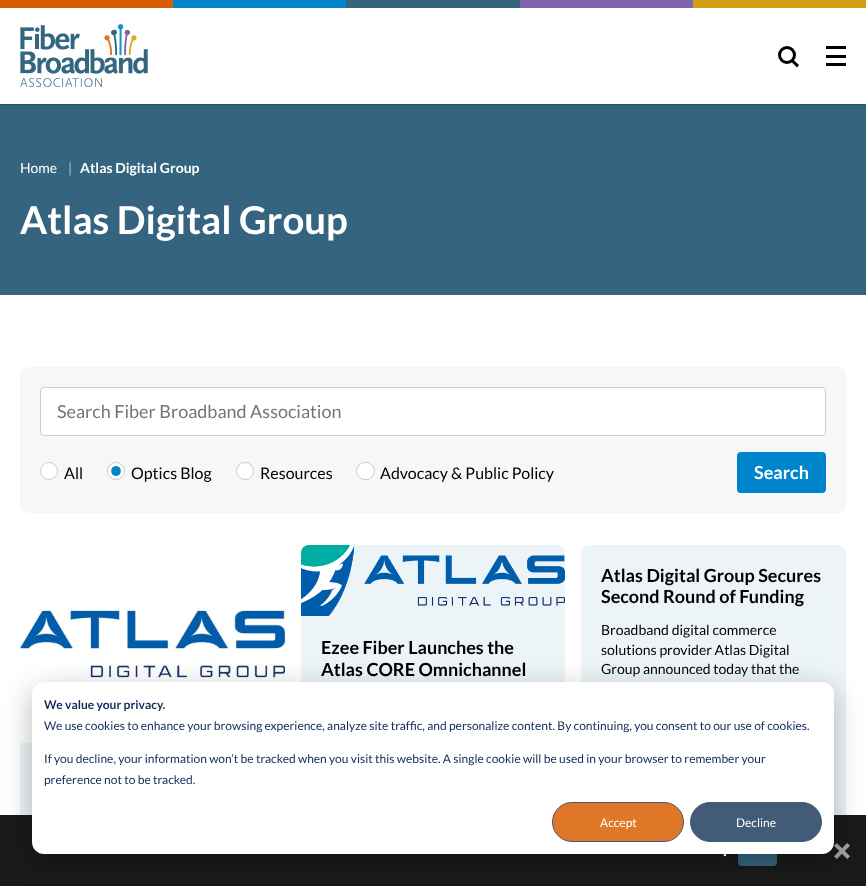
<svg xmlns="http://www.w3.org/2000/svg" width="866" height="886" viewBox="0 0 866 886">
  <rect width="100%" height="100%" fill="rgb(255,255,255)"/>
  <rect x="-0.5" y="-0.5" width="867" height="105" fill="none" stroke="rgb(42,80,102)"/>
  <rect x="0" y="0" width="173" height="8" fill="rgb(214,93,0)"/>
  <rect x="173" y="0" width="173" height="8" fill="rgb(0,133,204)"/>
  <rect x="346" y="0" width="174" height="8" fill="rgb(52,100,127)"/>
  <rect x="520" y="0" width="173" height="8" fill="rgb(127,100,170)"/>
  <rect x="693" y="0" width="173" height="8" fill="rgb(210,159,20)"/>
  <image x="20" y="24" width="128" height="63" href="pic1.png"/>
  <circle cx="787" cy="55" r="7.5" fill="none" stroke="rgb(0,0,0)" stroke-width="3"/>
  <path d="M792.5 59L799 65L797 67.5L790.5 61Z" fill="rgb(0,0,0)"/>
  <rect x="826" y="46" width="20" height="3" fill="rgb(0,0,0)"/>
  <rect x="826" y="55" width="20" height="3" fill="rgb(0,0,0)"/>
  <rect x="826" y="63" width="20" height="3" fill="rgb(0,0,0)"/>
  <rect x="0" y="105" width="866" height="190" fill="rgb(52,100,127)"/>
  <text x="20" y="173" font-family="Lato" font-size="14" fill="rgb(255,255,255)">Home</text>
  <text x="68" y="173" font-family="Lato" font-size="14" fill="rgb(174,193,204)">|</text>
  <text x="80" y="173" font-family="Lato" font-size="14" font-weight="bold" fill="rgb(255,255,255)">Atlas Digital Group</text>
  <text x="20" y="234" font-family="Lato" font-size="38.4" font-weight="bold" fill="rgb(255,255,255)">Atlas Digital Group</text>
  <rect x="20" y="367" width="826" height="146" rx="8" fill="rgb(247,247,247)"/>
  <rect x="40" y="387" width="786" height="49" rx="4" fill="rgb(255,255,255)"/>
  <rect x="40.5" y="387.5" width="785" height="48" rx="3.5" fill="none" stroke="rgba(0,0,0,0.2)"/>
  <text x="57" y="418" font-family="Lato" font-size="18" fill="rgb(117,117,117)">Search Fiber Broadband Association</text>
  <circle cx="49" cy="471" r="9" fill="rgb(255,255,255)"/>
  <circle cx="49" cy="471" r="8.5" fill="none" stroke="rgba(0,0,0,0.2)"/>
  <text x="64" y="479" font-family="Lato" font-size="16" fill="rgb(0,0,0)">All</text>
  <circle cx="116" cy="471" r="9" fill="rgb(255,255,255)"/>
  <circle cx="116" cy="471" r="8.5" fill="none" stroke="rgba(0,0,0,0.2)"/>
  <path d="M116 466C109.5 466 109.5 476 116 476C122.5 476 122.5 466 116 466Z" fill="rgb(0,133,204)"/>
  <text x="131" y="479" font-family="Lato" font-size="16" fill="rgb(0,0,0)">Optics Blog</text>
  <circle cx="245" cy="471" r="9" fill="rgb(255,255,255)"/>
  <circle cx="245" cy="471" r="8.5" fill="none" stroke="rgba(0,0,0,0.2)"/>
  <text x="260" y="479" font-family="Lato" font-size="16" fill="rgb(0,0,0)">Resources</text>
  <rect x="356" y="462" width="19" height="18" rx="9" fill="rgb(255,255,255)"/>
  <rect x="356.5" y="462.5" width="18" height="17" rx="8.5" fill="none" stroke="rgba(0,0,0,0.2)"/>
  <text x="380" y="479" font-family="Lato" font-size="16" fill="rgb(0,0,0)">Advocacy &amp; Public Policy</text>
  <rect x="737" y="452" width="89" height="41" rx="4" fill="rgb(0,133,204)"/>
  <text x="754" y="479" font-family="Lato" font-size="18" font-weight="bold" fill="rgb(255,255,255)">Search</text>
  <rect x="20" y="545" width="265" height="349" rx="8" fill="rgb(237,244,248)"/>
  <image x="20" y="545" width="265" height="198" href="pic2.png"/>
  <rect x="301" y="545" width="264" height="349" rx="8" fill="rgb(237,244,248)"/>
  <image x="301" y="545" width="264" height="71" href="pic3.png"/>
  <g font-family="Lato" font-size="18" font-weight="bold" fill="rgb(0,0,0)">
    <text>
      <tspan x="321" y="654">Ezee Fiber Launches the</tspan>
      <tspan x="321" y="676">Atlas CORE Omnichannel</tspan>
    </text>
  </g>
  <rect x="581" y="545" width="265" height="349" rx="8" fill="rgb(237,244,248)"/>
  <g font-family="Lato" font-size="18" font-weight="bold" fill="rgb(0,0,0)">
    <text>
      <tspan x="601" y="582">Atlas Digital Group Secures</tspan>
      <tspan x="601" y="603">Second Round of Funding</tspan>
    </text>
  </g>
  <g font-family="Lato" font-size="14" fill="rgb(0,0,0)">
    <text>
      <tspan x="601" y="635">Broadband digital commerce</tspan>
      <tspan x="601" y="655">solutions provider Atlas Digital</tspan>
      <tspan x="601" y="674">Group announced today that the</tspan>
    </text>
  </g>
  <rect x="0" y="815" width="866" height="71" fill="rgb(26,26,26)"/>
  <rect x="738" y="835" width="39" height="31" rx="4" fill="rgb(52,100,127)"/>
  <image x="834" y="843" width="16" height="16" href="pic4.png"/>
  <rect x="32" y="690" width="802" height="172" rx="12" fill="rgba(0,0,0,0.28)" filter="blur(14px)"/>
  <rect x="32" y="682" width="802" height="172" rx="12" fill="rgb(255,255,255)"/>
  <text x="44" y="709" font-family="Lato" font-size="12" font-weight="bold" fill="rgb(21,41,90)">We value your privacy.</text>
  <g font-family="Lato" font-size="12" fill="rgb(21,41,90)">
    <text x="44" y="730">We use cookies to enhance your browsing experience, analyze site traffic, and personalize content. By continuing, you consent to our use of cookies.</text>
    <text>
      <tspan x="44" y="763">If you decline, your information won’t be tracked when you visit this website. A single cookie will be used in your browser to remember your</tspan>
      <tspan x="44" y="784">preference not to be tracked.</tspan>
    </text>
  </g>
  <rect x="552.5" y="802.5" width="131" height="39" rx="19.5" fill="rgb(224,118,40)" stroke="rgb(66,91,118)"/>
  <text x="600" y="827" font-family="Lato" font-size="12" fill="rgb(255,255,255)">Accept</text>
  <rect x="690.5" y="802.5" width="131" height="39" rx="19.5" fill="rgb(66,91,118)" stroke="rgb(66,91,118)"/>
  <text x="736" y="827" font-family="Lato" font-size="12" fill="rgb(255,255,255)">Decline</text>
  <text x="723" y="856" font-family="Lato" font-size="18" fill="rgb(255,255,255)">.</text>
</svg>
